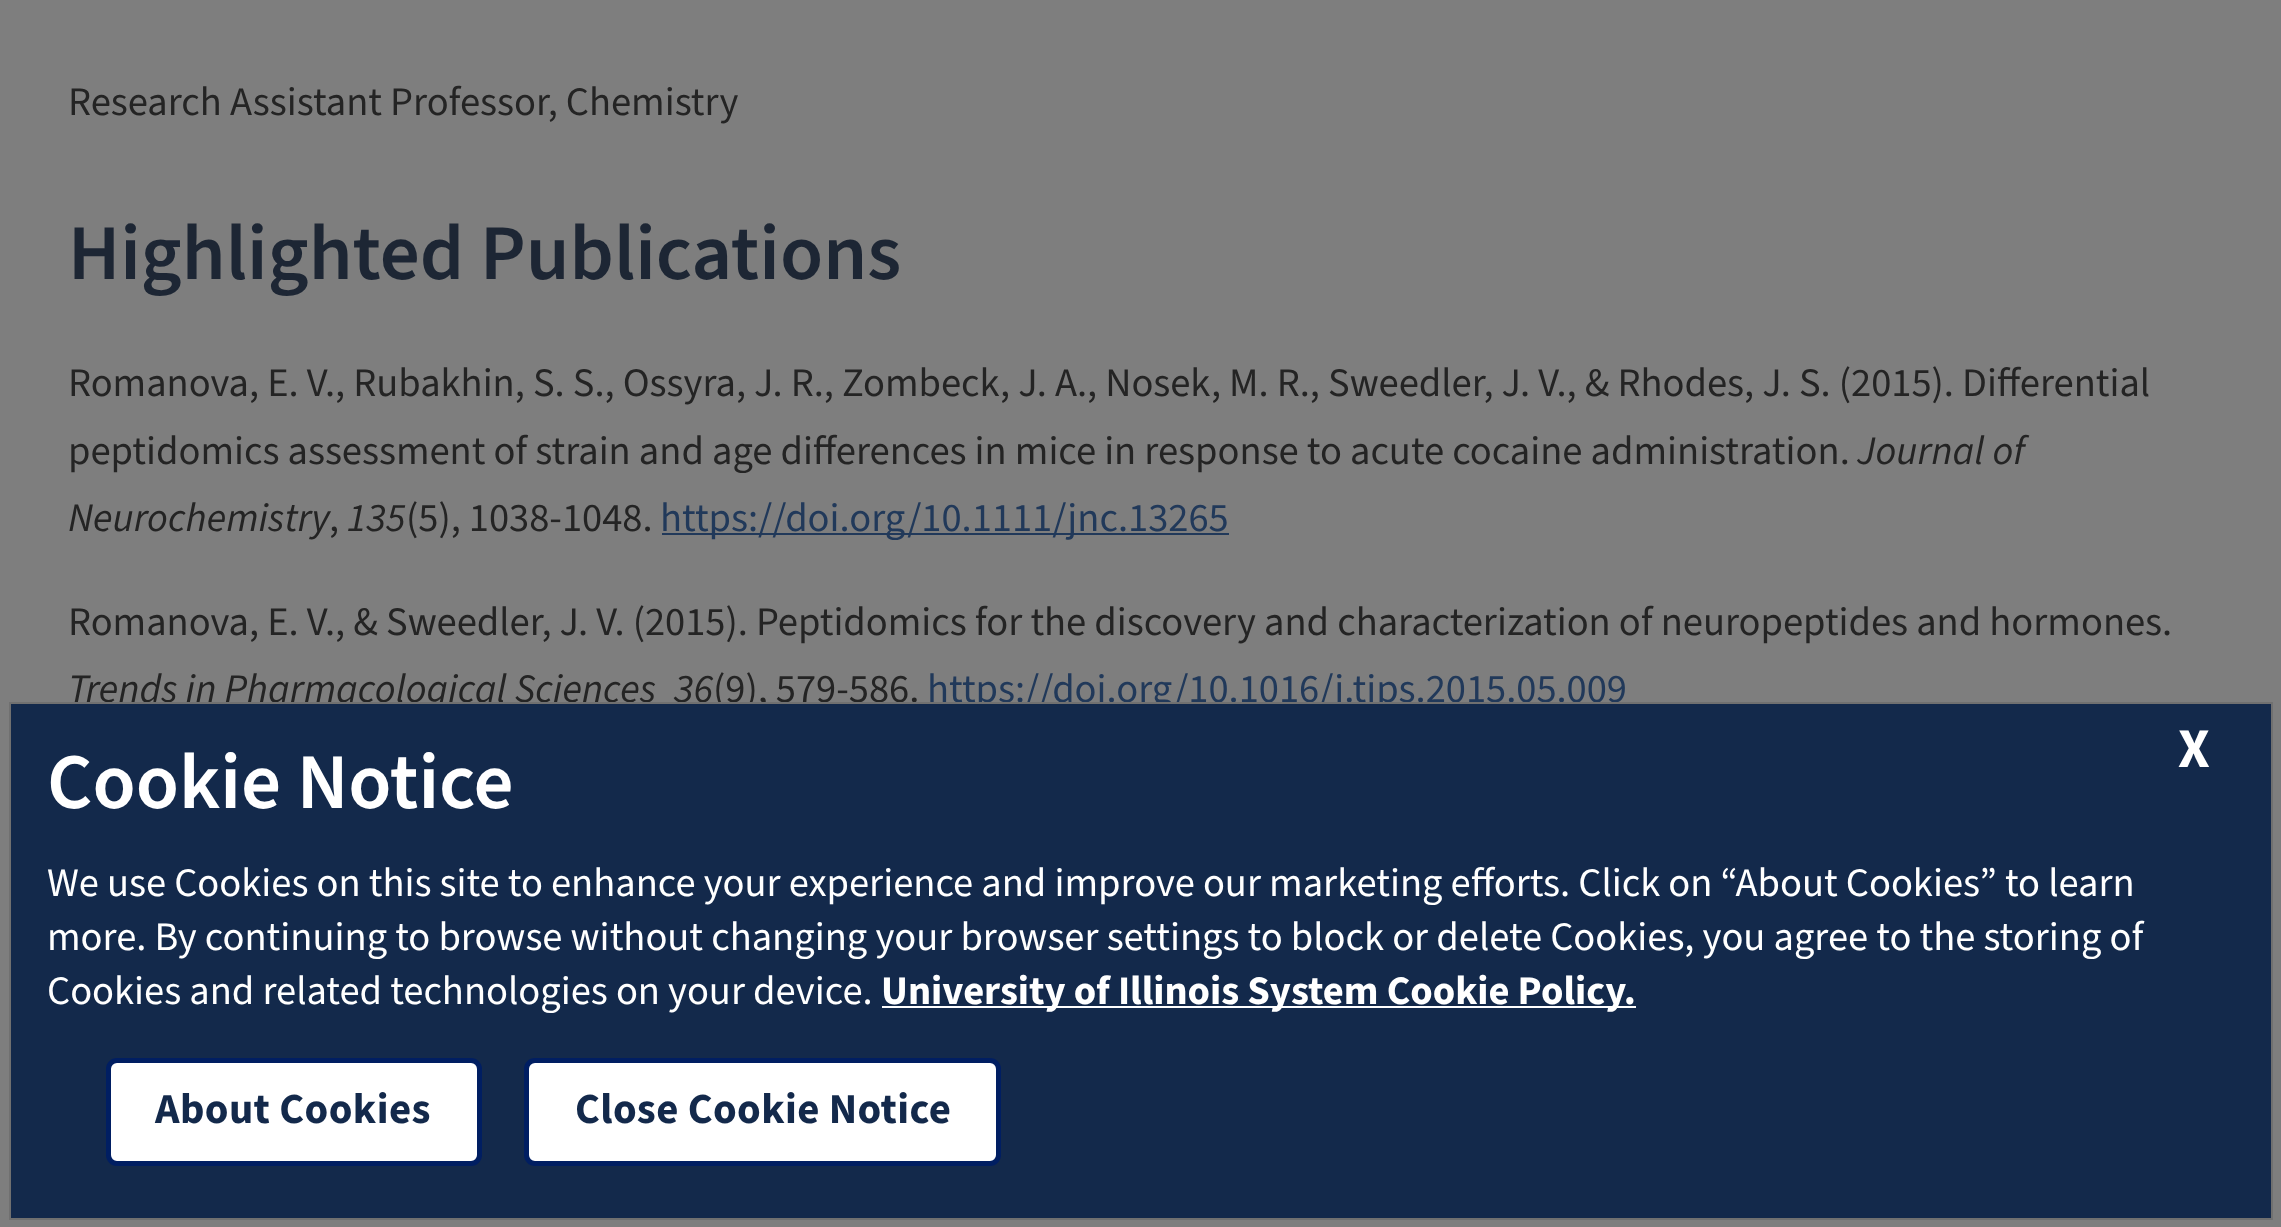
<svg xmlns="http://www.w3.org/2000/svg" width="2281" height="1227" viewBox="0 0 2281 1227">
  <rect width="100%" height="100%" fill="rgb(126,126,126)"/>
  <text x="68" y="115" font-family="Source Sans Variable" font-size="40.5" fill="rgb(36,36,36)">Research Assistant Professor, Chemistry</text>
  <text x="68" y="279" font-family="Source Sans Variable" font-size="78.75" font-weight="600" fill="rgb(29,38,52)">Highlighted Publications</text>
  <g font-family="Source Sans Variable" font-size="40.5" fill="rgb(36,36,36)">
    <text>
      <tspan x="68" y="396">Romanova, E. V., Rubakhin, S. S., Ossyra, J. R., Zombeck, J. A., Nosek, M. R., Sweedler, J. V., &amp; Rhodes, J. S. (2015). Differential</tspan>
      <tspan x="68" y="464">peptidomics assessment of strain and age differences in mice in response to acute cocaine administration.</tspan>
    </text>
  </g>
  <g font-family="Source Sans Variable" font-size="40.5" font-style="italic" fill="rgb(36,36,36)">
    <text x="1857" y="464">Journal of</text>
    <text x="68" y="531">Neurochemistry</text>
  </g>
  <text x="329" y="531" font-family="Source Sans Variable" font-size="40.5" fill="rgb(36,36,36)">,</text>
  <text x="347" y="531" font-family="Source Sans Variable" font-size="40.5" font-style="italic" fill="rgb(36,36,36)">135</text>
  <text x="406" y="531" font-family="Source Sans Variable" font-size="40.5" fill="rgb(36,36,36)">(5), 1038-1048.</text>
  <rect x="662" y="533" width="567" height="2" fill="rgb(33,57,90)"/>
  <text x="660" y="531" font-family="Source Sans Variable" font-size="40.5" fill="rgb(33,57,90)">https://doi.org/10.1111/jnc.13265</text>
  <text x="68" y="635" font-family="Source Sans Variable" font-size="40.5" fill="rgb(36,36,36)">Romanova, E. V., &amp; Sweedler, J. V. (2015). Peptidomics for the discovery and characterization of neuropeptides and hormones.</text>
  <g font-family="Source Sans Variable" font-size="40.5" font-style="italic" fill="rgb(36,36,36)">
    <text x="68" y="702">Trends in Pharmacological Sciences</text>
    <text x="674" y="702">36</text>
  </g>
  <text x="713" y="702" font-family="Source Sans Variable" font-size="40.5" fill="rgb(36,36,36)">(9), 579-586.</text>
  <text x="927" y="702" font-family="Source Sans Variable" font-size="40.5" fill="rgb(33,57,90)">https://doi.org/10.1016/j.tips.2015.05.009</text>
  <rect x="10" y="703" width="2262" height="516" fill="rgb(19,41,75)" stroke="rgb(112,112,112)" stroke-width="2"/>
  <text x="47" y="808" font-family="Source Sans Pro" font-size="78.75" font-weight="600" fill="rgb(255,255,255)">Cookie Notice</text>
  <text x="2178" y="767" font-family="Source Sans Variable" font-size="56" font-weight="bold" fill="rgb(255,255,255)">X</text>
  <g font-family="Source Sans Pro" font-size="40.5" fill="rgb(255,255,255)">
    <text>
      <tspan x="47" y="896">We use Cookies on this site to enhance your experience and improve our marketing efforts. Click on “About Cookies” to learn</tspan>
      <tspan x="47" y="950">more. By continuing to browse without changing your browser settings to block or delete Cookies, you agree to the storing of</tspan>
      <tspan x="47" y="1004">Cookies and related technologies on your device.</tspan>
    </text>
  </g>
  <rect x="882" y="1006" width="754" height="2" fill="rgb(255,255,255)"/>
  <text x="881" y="1004" font-family="Source Sans Variable" font-size="40.5" font-weight="bold" fill="rgb(255,255,255)">University of Illinois System Cookie Policy.</text>
  <rect x="108.5" y="1060.5" width="371" height="103" rx="8.5" fill="rgb(255,255,255)" stroke="rgb(0,30,98)" stroke-width="5"/>
  <text x="155" y="1123" font-family="Source Sans Variable" font-size="42.75" font-weight="bold" letter-spacing="0.4" fill="rgb(19,41,75)">About Cookies</text>
  <rect x="526.5" y="1060.5" width="472" height="103" rx="8.5" fill="rgb(255,255,255)" stroke="rgb(0,30,98)" stroke-width="5"/>
  <text x="575" y="1123" font-family="Source Sans Variable" font-size="42.75" font-weight="bold" letter-spacing="0.4" fill="rgb(19,41,75)">Close Cookie Notice</text>
</svg>
